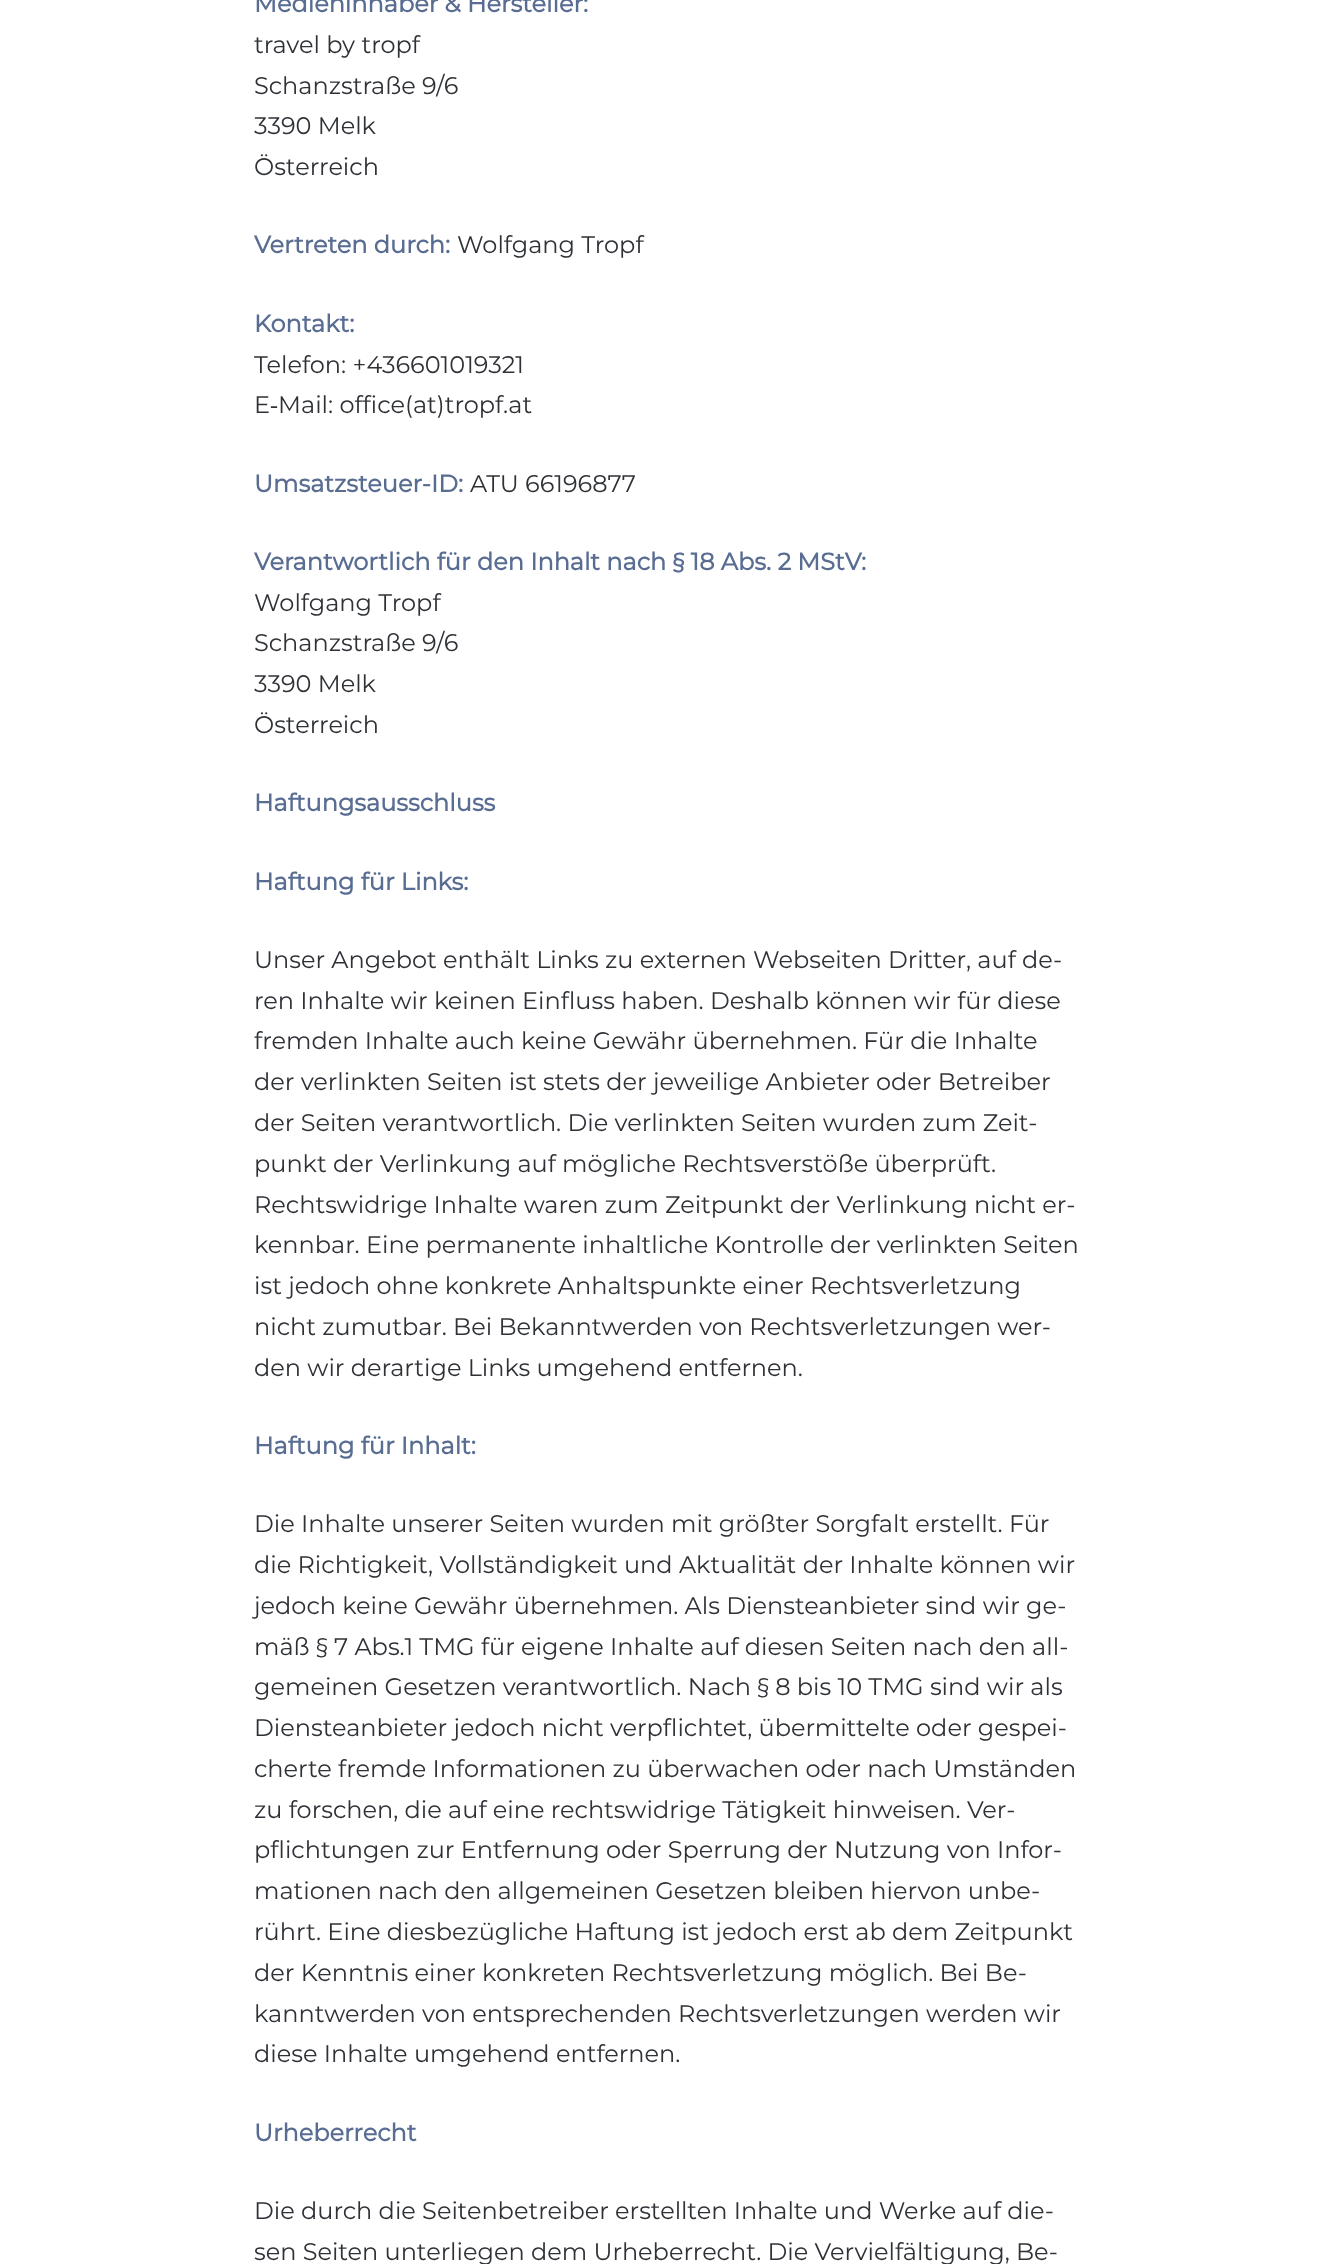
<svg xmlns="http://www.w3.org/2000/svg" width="1333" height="2264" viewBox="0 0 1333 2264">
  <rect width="100%" height="100%" fill="rgb(255,255,255)"/>
  <text x="254" y="12" font-family="Montserrat" font-size="24" font-weight="bold" fill="rgb(89,109,146)">Medieninhaber &amp; Hersteller:</text>
  <g font-family="Montserrat" font-size="24" fill="rgb(46,49,54)">
    <text>
      <tspan x="254" y="53">travel by tropf</tspan>
      <tspan x="254" y="94">Schanzstraße 9/6</tspan>
      <tspan x="254" y="134">3390 Melk</tspan>
      <tspan x="254" y="175">Österreich</tspan>
    </text>
  </g>
  <text x="254" y="253" font-family="Montserrat" font-size="24" font-weight="bold" fill="rgb(89,109,146)">Vertreten durch:</text>
  <text x="457" y="253" font-family="Montserrat" font-size="24" fill="rgb(46,49,54)">Wolfgang Tropf</text>
  <text x="254" y="332" font-family="Montserrat" font-size="24" font-weight="bold" fill="rgb(89,109,146)">Kontakt:</text>
  <g font-family="Montserrat" font-size="24" fill="rgb(46,49,54)">
    <text>
      <tspan x="254" y="373">Telefon: +436601019321</tspan>
      <tspan x="254" y="413">E‑Mail: office(at)tropf.at</tspan>
    </text>
  </g>
  <text x="254" y="492" font-family="Montserrat" font-size="24" font-weight="bold" fill="rgb(89,109,146)">Umsatzsteuer-ID:</text>
  <text x="470" y="492" font-family="Montserrat" font-size="24" fill="rgb(46,49,54)">ATU 66196877</text>
  <text x="254" y="570" font-family="Montserrat" font-size="24" font-weight="bold" fill="rgb(89,109,146)">Verantwortlich für den Inhalt nach § 18 Abs. 2 MStV:</text>
  <g font-family="Montserrat" font-size="24" fill="rgb(46,49,54)">
    <text>
      <tspan x="254" y="611">Wolfgang Tropf</tspan>
      <tspan x="254" y="651">Schanzstraße 9/6</tspan>
      <tspan x="254" y="692">3390 Melk</tspan>
      <tspan x="254" y="733">Österreich</tspan>
    </text>
  </g>
  <g font-family="Montserrat" font-size="24" font-weight="bold" fill="rgb(89,109,146)">
    <text x="254" y="811">Haftungsausschluss</text>
    <text x="254" y="890">Haftung für Links:</text>
  </g>
  <g font-family="Montserrat" font-size="24" fill="rgb(46,49,54)">
    <text>
      <tspan x="254" y="968">Unser Angebot enthält Links zu externen Webseiten Dritter, auf de-</tspan>
      <tspan x="254" y="1009">ren Inhalte wir keinen Einfluss haben. Deshalb können wir für diese</tspan>
      <tspan x="254" y="1049">fremden Inhalte auch keine Gewähr übernehmen. Für die Inhalte</tspan>
      <tspan x="254" y="1090">der verlinkten Seiten ist stets der jeweilige Anbieter oder Betreiber</tspan>
      <tspan x="254" y="1131">der Seiten verantwortlich. Die verlinkten Seiten wurden zum Zeit-</tspan>
      <tspan x="254" y="1172">punkt der Verlinkung auf mögliche Rechtsverstöße überprüft.</tspan>
      <tspan x="254" y="1213">Rechtswidrige Inhalte waren zum Zeitpunkt der Verlinkung nicht er-</tspan>
      <tspan x="254" y="1253">kennbar. Eine permanente inhaltliche Kontrolle der verlinkten Seiten</tspan>
      <tspan x="254" y="1294">ist jedoch ohne konkrete Anhaltspunkte einer Rechtsverletzung</tspan>
      <tspan x="254" y="1335">nicht zumutbar. Bei Bekanntwerden von Rechtsverletzungen wer-</tspan>
      <tspan x="254" y="1376">den wir derartige Links umgehend entfernen.</tspan>
    </text>
  </g>
  <text x="254" y="1454" font-family="Montserrat" font-size="24" font-weight="bold" fill="rgb(89,109,146)">Haftung für Inhalt:</text>
  <g font-family="Montserrat" font-size="24" fill="rgb(46,49,54)">
    <text>
      <tspan x="254" y="1532">Die Inhalte unserer Seiten wurden mit größter Sorgfalt erstellt. Für</tspan>
      <tspan x="254" y="1573">die Richtigkeit, Vollständigkeit und Aktualität der Inhalte können wir</tspan>
      <tspan x="254" y="1614">jedoch keine Gewähr übernehmen. Als Diensteanbieter sind wir ge-</tspan>
      <tspan x="254" y="1655">mäß § 7 Abs.1 TMG für eigene Inhalte auf diesen Seiten nach den all-</tspan>
      <tspan x="254" y="1695">gemeinen Gesetzen verantwortlich. Nach § 8 bis 10 TMG sind wir als</tspan>
      <tspan x="254" y="1736">Diensteanbieter jedoch nicht verpflichtet, übermittelte oder gespei-</tspan>
      <tspan x="254" y="1777">cherte fremde Informationen zu überwachen oder nach Umständen</tspan>
      <tspan x="254" y="1818">zu forschen, die auf eine rechtswidrige Tätigkeit hinweisen. Ver-</tspan>
      <tspan x="254" y="1858">pflichtungen zur Entfernung oder Sperrung der Nutzung von Infor-</tspan>
      <tspan x="254" y="1899">mationen nach den allgemeinen Gesetzen bleiben hiervon unbe-</tspan>
      <tspan x="254" y="1940">rührt. Eine diesbezügliche Haftung ist jedoch erst ab dem Zeitpunkt</tspan>
      <tspan x="254" y="1981">der Kenntnis einer konkreten Rechtsverletzung möglich. Bei Be-</tspan>
      <tspan x="254" y="2022">kanntwerden von entsprechenden Rechtsverletzungen werden wir</tspan>
      <tspan x="254" y="2062">diese Inhalte umgehend entfernen.</tspan>
    </text>
  </g>
  <text x="254" y="2141" font-family="Montserrat" font-size="24" font-weight="bold" fill="rgb(89,109,146)">Urheberrecht</text>
  <g font-family="Montserrat" font-size="24" fill="rgb(46,49,54)">
    <text>
      <tspan x="254" y="2219">Die durch die Seitenbetreiber erstellten Inhalte und Werke auf die-</tspan>
      <tspan x="254" y="2260">sen Seiten unterliegen dem Urheberrecht. Die Vervielfältigung, Be-</tspan>
    </text>
  </g>
</svg>
